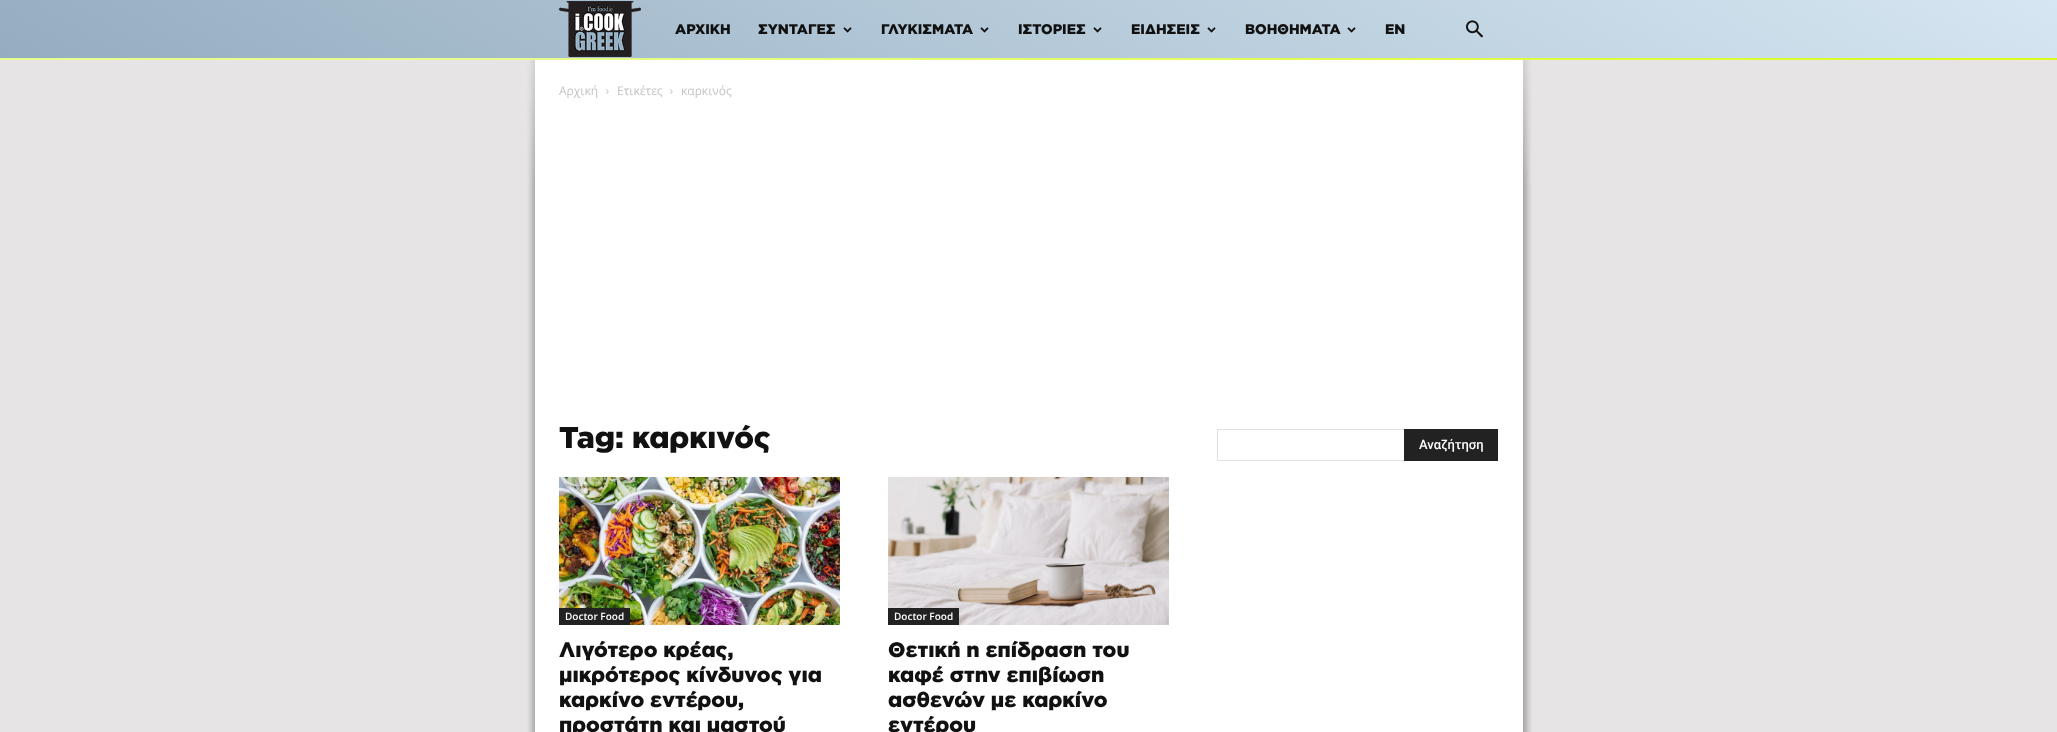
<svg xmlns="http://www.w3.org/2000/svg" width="2057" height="732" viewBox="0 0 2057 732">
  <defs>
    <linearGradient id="g1" gradientUnits="userSpaceOnUse" x1="1299" y1="-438" x2="758" y2="498"><stop offset="0" stop-color="rgb(214,230,242)"/><stop offset="1" stop-color="rgb(148,173,192)"/></linearGradient>
    <linearGradient id="g2" gradientUnits="userSpaceOnUse" x1="0" y1="59" x2="2057" y2="59"><stop offset="0.28" stop-color="rgb(232,253,138)"/><stop offset="1" stop-color="rgb(219,255,24)"/></linearGradient>
  </defs>
  <rect width="100%" height="100%" fill="rgb(230,228,229)"/>
  <rect x="0" y="0" width="2057" height="58" fill="url(#g1)"/>
  <image x="559" y="1" width="82" height="56" href="pic1.png"/>
  <g font-family="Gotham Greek" font-size="14" font-weight="900" fill="rgb(17,17,17)">
    <text x="675" y="34">ΑΡΧΙΚΗ</text>
    <text x="758" y="34">ΣΥΝΤΑΓΕΣ</text>
  </g>
  <image x="843" y="27" width="9" height="6" href="pic2.png"/>
  <text x="881" y="34" font-family="Gotham Greek" font-size="14" font-weight="900" fill="rgb(17,17,17)">ΓΛΥΚΙΣΜΑΤΑ</text>
  <image x="980" y="27" width="9" height="6" href="pic3.png"/>
  <text x="1018" y="34" font-family="Gotham Greek" font-size="14" font-weight="900" fill="rgb(17,17,17)">ΙΣΤΟΡΙΕΣ</text>
  <image x="1093" y="27" width="9" height="6" href="pic4.png"/>
  <text x="1131" y="34" font-family="Gotham Greek" font-size="14" font-weight="900" fill="rgb(17,17,17)">ΕΙΔΗΣΕΙΣ</text>
  <image x="1207" y="27" width="9" height="6" href="pic5.png"/>
  <text x="1245" y="34" font-family="Gotham Greek" font-size="14" font-weight="900" fill="rgb(17,17,17)">ΒΟΗΘΗΜΑΤΑ</text>
  <image x="1347" y="27" width="9" height="6" href="pic6.png"/>
  <text x="1385" y="34" font-family="Gotham Greek" font-size="14" font-weight="900" fill="rgb(17,17,17)">EN</text>
  <image x="1466" y="20" width="17" height="18" href="pic7.png"/>
  <rect x="0" y="58" width="2057" height="2" fill="url(#g2)"/>
  <image x="527" y="60" width="1005" height="672" href="pic8.png"/>
  <text x="559" y="95" font-family="Open Sans" font-size="12" fill="rgb(195,195,195)">Αρχική</text>
  <image x="606" y="89" width="3" height="5" href="pic9.png"/>
  <text x="617" y="95" font-family="Open Sans" font-size="12" fill="rgb(195,195,195)">Ετικέτες</text>
  <image x="670" y="89" width="3" height="5" href="pic9.png"/>
  <text x="681" y="95" font-family="Open Sans" font-size="12" fill="rgb(195,195,195)">καρκινός</text>
  <text x="559" y="448" font-family="Gotham Greek" font-size="30" font-weight="900" fill="rgb(17,17,17)">Tag: καρκινός</text>
  <image x="559" y="477" width="281" height="148" href="pic10.png"/>
  <rect x="559" y="608" width="71" height="17" fill="rgb(34,34,34)"/>
  <text x="565" y="620" font-family="Open Sans" font-size="10" font-weight="600" fill="rgb(255,255,255)">Doctor Food</text>
  <g font-family="Gotham Greek" font-size="21" font-weight="900" fill="rgb(17,17,17)">
    <text>
      <tspan x="559" y="657">Λιγότερο κρέας,</tspan>
      <tspan x="559" y="682">μικρότερος κίνδυνος για</tspan>
      <tspan x="559" y="707">καρκίνο εντέρου,</tspan>
      <tspan x="559" y="732">προστάτη και μαστού</tspan>
    </text>
  </g>
  <image x="888" y="477" width="281" height="148" href="pic11.png"/>
  <rect x="888" y="608" width="71" height="17" fill="rgb(34,34,34)"/>
  <text x="894" y="620" font-family="Open Sans" font-size="10" font-weight="600" fill="rgb(255,255,255)">Doctor Food</text>
  <g font-family="Gotham Greek" font-size="21" font-weight="900" fill="rgb(17,17,17)">
    <text>
      <tspan x="888" y="657">Θετική η επίδραση του</tspan>
      <tspan x="888" y="682">καφέ στην επιβίωση</tspan>
      <tspan x="888" y="707">ασθενών με καρκίνο</tspan>
      <tspan x="888" y="732">εντέρου</tspan>
    </text>
  </g>
  <rect x="1217" y="429" width="187" height="1" fill="rgb(225,225,225)"/>
  <rect x="1217" y="460" width="187" height="1" fill="rgb(225,225,225)"/>
  <rect x="1217" y="429" width="1" height="32" fill="rgb(225,225,225)"/>
  <rect x="1404" y="429" width="94" height="32" fill="rgb(34,34,34)"/>
  <text x="1419" y="449" font-family="Roboto" font-size="13" font-weight="500" fill="rgb(255,255,255)">Αναζήτηση</text>
</svg>
